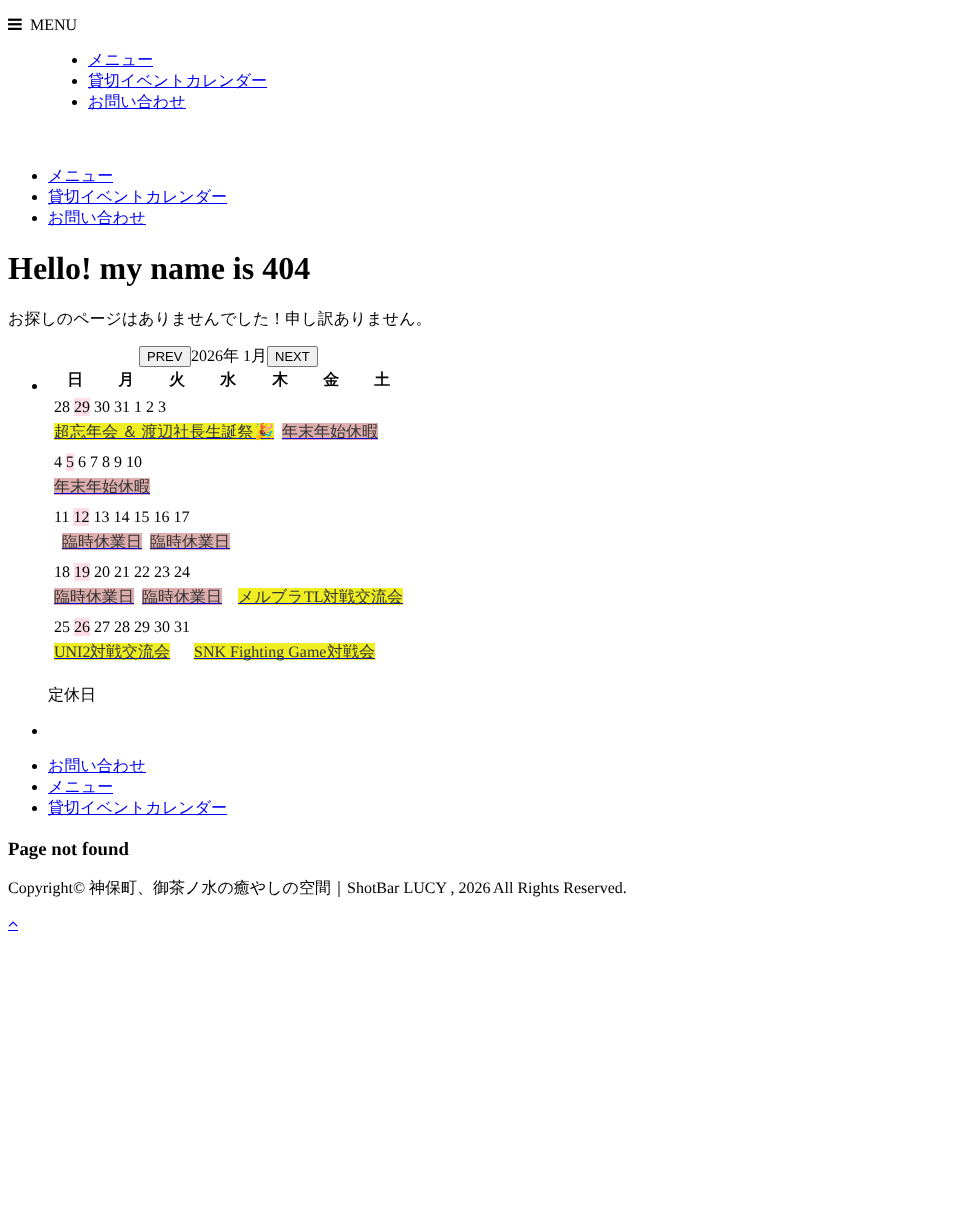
<svg xmlns="http://www.w3.org/2000/svg" width="977" height="1216" viewBox="0 0 977 1216">
  <rect width="100%" height="100%" fill="rgb(255,255,255)"/>
  <image x="8" y="18" width="14" height="12" href="pic1.png"/>
  <text x="30" y="30" font-family="Liberation Serif" font-size="16" fill="rgb(0,0,0)">MENU</text>
  <circle cx="74.5" cy="60.5" r="2.5" fill="rgb(0,0,0)"/>
  <text x="88" y="65" font-family="WenQuanYi Zen Hei" font-size="16" font-weight="500" fill="rgb(0,0,238)">メニュー</text>
  <rect x="88" y="66" width="65" height="1" fill="rgb(0,0,238)"/>
  <circle cx="74.5" cy="81.5" r="2.5" fill="rgb(0,0,0)"/>
  <rect x="88" y="87" width="179" height="1" fill="rgb(0,0,238)"/>
  <text x="88" y="86" font-family="WenQuanYi Zen Hei" font-size="16" font-weight="500" fill="rgb(0,0,238)">貸切イベントカレンダー</text>
  <circle cx="74.5" cy="102.5" r="2.5" fill="rgb(0,0,0)"/>
  <rect x="88" y="108" width="98" height="1" fill="rgb(0,0,238)"/>
  <text x="88" y="107" font-family="WenQuanYi Zen Hei" font-size="16" font-weight="500" fill="rgb(0,0,238)">お問い合わせ</text>
  <circle cx="34.5" cy="176.5" r="2.5" fill="rgb(0,0,0)"/>
  <text x="48" y="181" font-family="WenQuanYi Zen Hei" font-size="16" font-weight="500" fill="rgb(0,0,238)">メニュー</text>
  <rect x="48" y="182" width="65" height="1" fill="rgb(0,0,238)"/>
  <circle cx="34.5" cy="197.5" r="2.5" fill="rgb(0,0,0)"/>
  <rect x="48" y="203" width="179" height="1" fill="rgb(0,0,238)"/>
  <text x="48" y="202" font-family="WenQuanYi Zen Hei" font-size="16" font-weight="500" fill="rgb(0,0,238)">貸切イベントカレンダー</text>
  <circle cx="34.5" cy="218.5" r="2.5" fill="rgb(0,0,0)"/>
  <rect x="48" y="224" width="98" height="1" fill="rgb(0,0,238)"/>
  <text x="48" y="223" font-family="WenQuanYi Zen Hei" font-size="16" font-weight="500" fill="rgb(0,0,238)">お問い合わせ</text>
  <text x="8" y="279" font-family="Liberation Serif" font-size="32" font-weight="bold" fill="rgb(0,0,0)">Hello! my name is 404</text>
  <text x="8" y="324" font-family="WenQuanYi Zen Hei" font-size="16" font-weight="500" fill="rgb(0,0,0)">お探しのページはありませんでした！申し訳ありません。</text>
  <circle cx="34.5" cy="386.5" r="2.5" fill="rgb(0,0,0)"/>
  <rect x="139.5" y="346.5" width="51" height="20" rx="1.5" fill="rgb(239,239,239)" stroke="rgb(118,118,118)"/>
  <text x="147" y="361" font-family="Liberation Sans" font-size="13" fill="rgb(0,0,0)">PREV</text>
  <text x="191" y="361" font-family="Liberation Serif" font-size="16" fill="rgb(0,0,0)">2026</text>
  <text x="223" y="361" font-family="WenQuanYi Zen Hei" font-size="16" font-weight="500" fill="rgb(0,0,0)">年</text>
  <text x="243" y="361" font-family="Liberation Serif" font-size="16" fill="rgb(0,0,0)">1</text>
  <text x="251" y="361" font-family="WenQuanYi Zen Hei" font-size="16" font-weight="500" fill="rgb(0,0,0)">月</text>
  <rect x="267.5" y="346.5" width="50" height="20" rx="1.5" fill="rgb(239,239,239)" stroke="rgb(118,118,118)"/>
  <text x="275" y="361" font-family="Liberation Sans" font-size="13" fill="rgb(0,0,0)">NEXT</text>
  <g font-family="WenQuanYi Zen Hei" font-size="16" font-weight="bold" fill="rgb(0,0,0)">
    <text x="67" y="385">日</text>
    <text x="118" y="385">月</text>
    <text x="169" y="385">火</text>
    <text x="220" y="385">水</text>
    <text x="272" y="385">木</text>
    <text x="323" y="385">金</text>
    <text x="374" y="385">土</text>
  </g>
  <rect x="74" y="398" width="16" height="18" fill="rgb(253,221,230)"/>
  <text x="54" y="412" font-family="Liberation Serif" font-size="16" fill="rgb(0,0,0)">28 29 30 31 1 2 3</text>
  <rect x="54" y="423" width="220" height="17" fill="rgb(238,238,34)"/>
  <rect x="54" y="438" width="220" height="1" fill="rgb(0,0,238)"/>
  <text x="54" y="437" word-spacing="-1" font-family="WenQuanYi Zen Hei" font-size="16" font-weight="500" fill="rgb(51,51,51)">超忘年会 ＆ 渡辺社長生誕祭</text>
  <text x="254" y="437" font-family="Noto Color Emoji" font-size="16" fill="rgb(51,51,51)">🎉</text>
  <rect x="282" y="423" width="96" height="17" fill="rgb(221,173,173)"/>
  <rect x="282" y="438" width="96" height="1" fill="rgb(0,0,238)"/>
  <text x="282" y="437" font-family="WenQuanYi Zen Hei" font-size="16" font-weight="500" fill="rgb(51,51,51)">年末年始休暇</text>
  <rect x="66" y="453" width="8" height="18" fill="rgb(253,221,230)"/>
  <text x="54" y="467" font-family="Liberation Serif" font-size="16" fill="rgb(0,0,0)">4 5 6 7 8 9 10</text>
  <rect x="54" y="478" width="96" height="17" fill="rgb(221,173,173)"/>
  <rect x="54" y="493" width="96" height="1" fill="rgb(0,0,238)"/>
  <text x="54" y="492" font-family="WenQuanYi Zen Hei" font-size="16" font-weight="500" fill="rgb(51,51,51)">年末年始休暇</text>
  <rect x="73" y="508" width="16" height="18" fill="rgb(253,221,230)"/>
  <text x="54" y="522" font-family="Liberation Serif" font-size="16" fill="rgb(0,0,0)">11 12 13 14 15 16 17</text>
  <rect x="62" y="533" width="80" height="17" fill="rgb(221,173,173)"/>
  <rect x="62" y="548" width="80" height="1" fill="rgb(0,0,238)"/>
  <text x="62" y="547" font-family="WenQuanYi Zen Hei" font-size="16" font-weight="500" fill="rgb(51,51,51)">臨時休業日</text>
  <rect x="150" y="533" width="80" height="17" fill="rgb(221,173,173)"/>
  <rect x="150" y="548" width="80" height="1" fill="rgb(0,0,238)"/>
  <text x="150" y="547" font-family="WenQuanYi Zen Hei" font-size="16" font-weight="500" fill="rgb(51,51,51)">臨時休業日</text>
  <rect x="74" y="563" width="16" height="18" fill="rgb(253,221,230)"/>
  <text x="54" y="577" font-family="Liberation Serif" font-size="16" fill="rgb(0,0,0)">18 19 20 21 22 23 24</text>
  <rect x="54" y="588" width="80" height="17" fill="rgb(221,173,173)"/>
  <rect x="54" y="603" width="80" height="1" fill="rgb(0,0,238)"/>
  <text x="54" y="602" font-family="WenQuanYi Zen Hei" font-size="16" font-weight="500" fill="rgb(51,51,51)">臨時休業日</text>
  <rect x="142" y="588" width="80" height="17" fill="rgb(221,173,173)"/>
  <rect x="142" y="603" width="80" height="1" fill="rgb(0,0,238)"/>
  <text x="142" y="602" font-family="WenQuanYi Zen Hei" font-size="16" font-weight="500" fill="rgb(51,51,51)">臨時休業日</text>
  <rect x="238" y="588" width="165" height="17" fill="rgb(238,238,34)"/>
  <rect x="238" y="603" width="165" height="1" fill="rgb(0,0,238)"/>
  <text x="238" y="602" font-family="WenQuanYi Zen Hei" font-size="16" font-weight="500" fill="rgb(51,51,51)">メルブラ</text>
  <text x="304" y="602" font-family="Liberation Serif" font-size="16" fill="rgb(51,51,51)">TL</text>
  <text x="323" y="602" font-family="WenQuanYi Zen Hei" font-size="16" font-weight="500" fill="rgb(51,51,51)">対戦交流会</text>
  <rect x="74" y="618" width="16" height="18" fill="rgb(253,221,230)"/>
  <text x="54" y="632" font-family="Liberation Serif" font-size="16" fill="rgb(0,0,0)">25 26 27 28 29 30 31</text>
  <rect x="54" y="643" width="116" height="17" fill="rgb(238,238,34)"/>
  <text x="54" y="657" font-family="Liberation Serif" font-size="16" fill="rgb(51,51,51)">UNI2</text>
  <rect x="54" y="658" width="116" height="1" fill="rgb(0,0,238)"/>
  <text x="90" y="657" font-family="WenQuanYi Zen Hei" font-size="16" font-weight="500" fill="rgb(51,51,51)">対戦交流会</text>
  <rect x="194" y="643" width="181" height="17" fill="rgb(238,238,34)"/>
  <rect x="194" y="658" width="181" height="1" fill="rgb(0,0,238)"/>
  <text x="194" y="657" font-family="Liberation Serif" font-size="16" fill="rgb(51,51,51)">SNK Fighting Game</text>
  <text x="327" y="657" font-family="WenQuanYi Zen Hei" font-size="16" font-weight="500" fill="rgb(51,51,51)">対戦会</text>
  <text x="48" y="700" font-family="WenQuanYi Zen Hei" font-size="16" font-weight="500" fill="rgb(0,0,0)">定休日</text>
  <circle cx="34.5" cy="731.5" r="2.5" fill="rgb(0,0,0)"/>
  <circle cx="34.5" cy="766.5" r="2.5" fill="rgb(0,0,0)"/>
  <rect x="48" y="772" width="98" height="1" fill="rgb(0,0,238)"/>
  <text x="48" y="771" font-family="WenQuanYi Zen Hei" font-size="16" font-weight="500" fill="rgb(0,0,238)">お問い合わせ</text>
  <circle cx="34.5" cy="787.5" r="2.5" fill="rgb(0,0,0)"/>
  <text x="48" y="792" font-family="WenQuanYi Zen Hei" font-size="16" font-weight="500" fill="rgb(0,0,238)">メニュー</text>
  <rect x="48" y="793" width="65" height="1" fill="rgb(0,0,238)"/>
  <circle cx="34.5" cy="808.5" r="2.5" fill="rgb(0,0,0)"/>
  <rect x="48" y="814" width="179" height="1" fill="rgb(0,0,238)"/>
  <text x="48" y="813" font-family="WenQuanYi Zen Hei" font-size="16" font-weight="500" fill="rgb(0,0,238)">貸切イベントカレンダー</text>
  <text x="8" y="855" font-family="Liberation Serif" font-size="18.75" font-weight="bold" fill="rgb(0,0,0)">Page not found</text>
  <text x="8" y="893" font-family="Liberation Serif" font-size="16" fill="rgb(0,0,0)">Copyright©</text>
  <text x="89" y="893" font-family="WenQuanYi Zen Hei" font-size="16" font-weight="500" fill="rgb(0,0,0)">神保町、御茶ノ水の癒やしの空間｜</text>
  <g font-family="Liberation Serif" font-size="16" fill="rgb(0,0,0)">
    <text x="347" y="893">ShotBar LUCY , 2026</text>
    <text x="493" y="893">All Rights Reserved.</text>
  </g>
  <image x="8" y="921" width="10" height="6" href="pic2.png"/>
  <rect x="8" y="930" width="10" height="1" fill="rgb(0,0,238)"/>
</svg>
